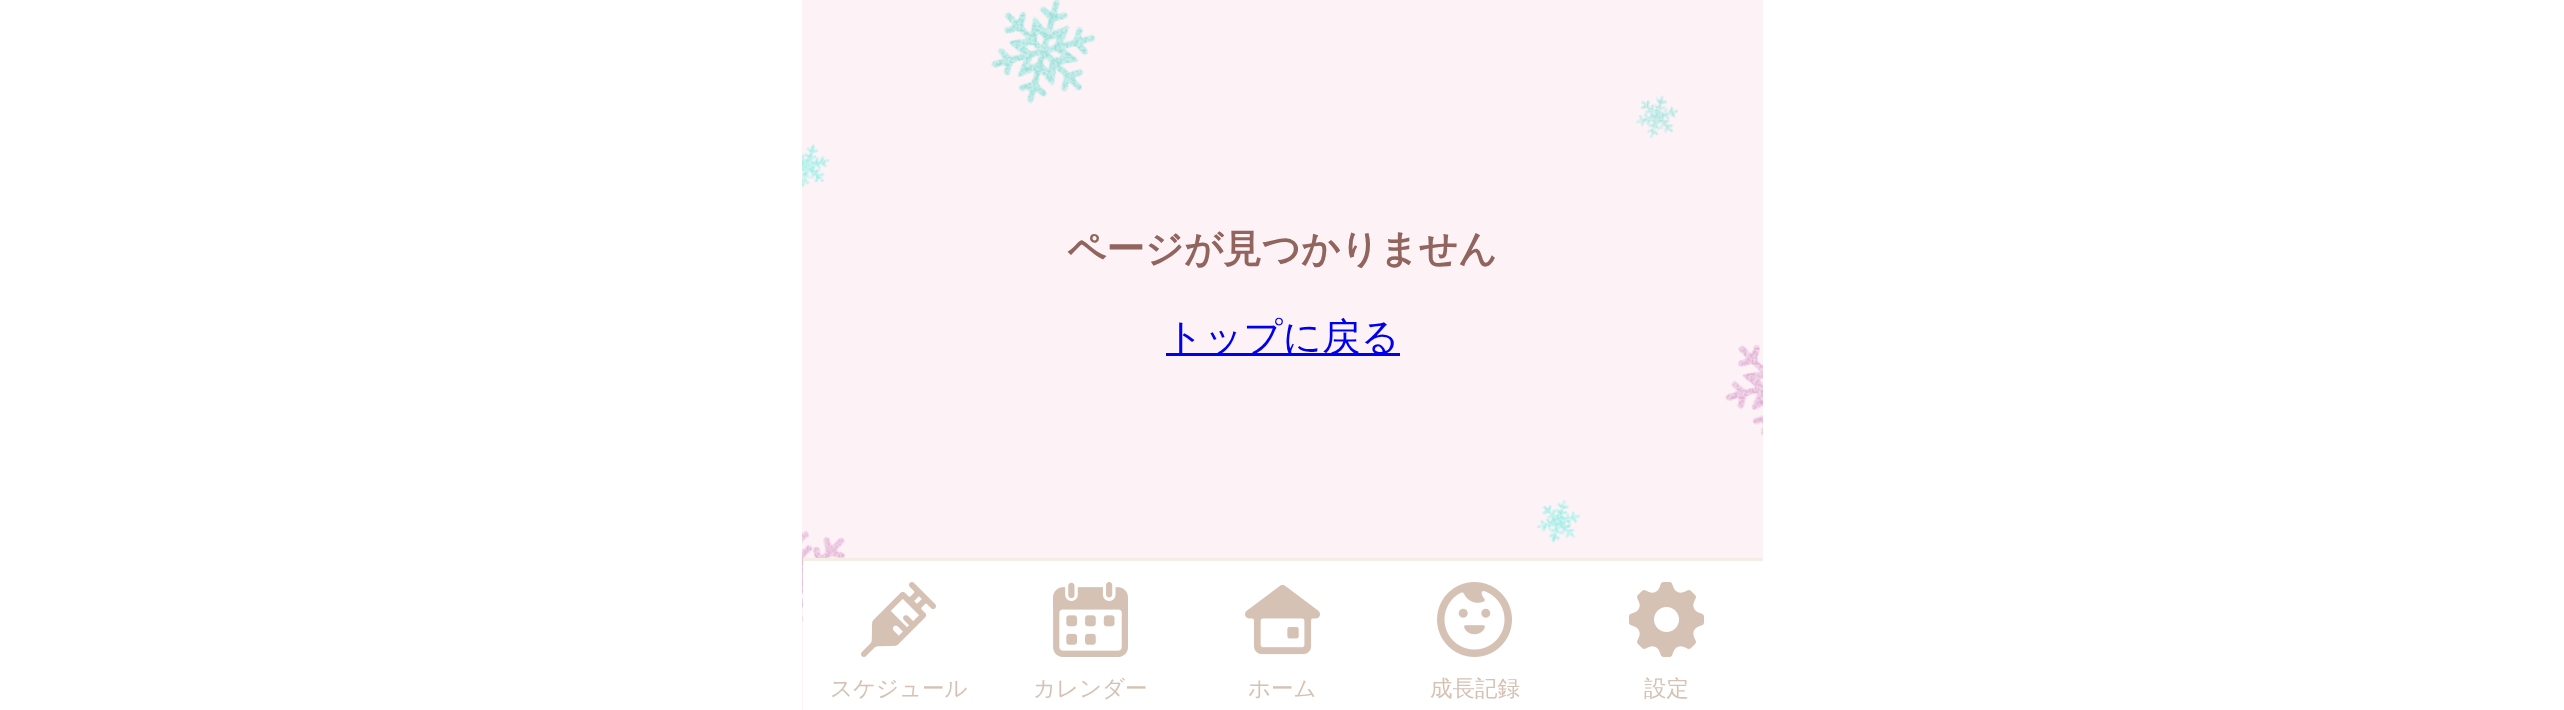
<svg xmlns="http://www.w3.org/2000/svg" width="2564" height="710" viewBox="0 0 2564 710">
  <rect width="100%" height="100%" fill="rgb(255,255,255)"/>
  <image x="802" y="0" width="961" height="710" href="pic1.png"/>
  <text x="1067" y="262" font-family="WenQuanYi Zen Hei" font-size="38.4" font-weight="bold" fill="rgb(145,100,94)">ページが見つかりません</text>
  <rect x="1166" y="353" width="234" height="3" fill="rgb(0,0,238)"/>
  <text x="1165" y="350" font-family="WenQuanYi Zen Hei" font-size="38.4" font-weight="500" fill="rgb(0,0,238)">トップに戻る</text>
  <rect x="803" y="558" width="960" height="3" fill="rgb(245,238,229)"/>
  <rect x="803" y="561" width="960" height="149" fill="rgb(255,255,255)"/>
  <image x="861" y="582" width="75" height="75" href="pic2.png"/>
  <text x="830" y="696" font-family="WenQuanYi Zen Hei" font-size="22.5" font-weight="500" fill="rgb(213,194,180)">スケジュール</text>
  <image x="1053" y="582" width="75" height="75" href="pic3.png"/>
  <text x="1033" y="696" font-family="WenQuanYi Zen Hei" font-size="22.5" font-weight="500" fill="rgb(213,194,180)">カレンダー</text>
  <image x="1245" y="584" width="75" height="71" href="pic4.png"/>
  <text x="1248" y="696" font-family="WenQuanYi Zen Hei" font-size="22.5" font-weight="500" fill="rgb(213,194,180)">ホーム</text>
  <image x="1437" y="582" width="75" height="75" href="pic5.png"/>
  <text x="1430" y="696" font-family="WenQuanYi Zen Hei" font-size="22.5" font-weight="500" fill="rgb(213,194,180)">成長記録</text>
  <image x="1629" y="582" width="75" height="75" href="pic6.png"/>
  <text x="1644" y="696" font-family="WenQuanYi Zen Hei" font-size="22.5" font-weight="500" fill="rgb(213,194,180)">設定</text>
</svg>
